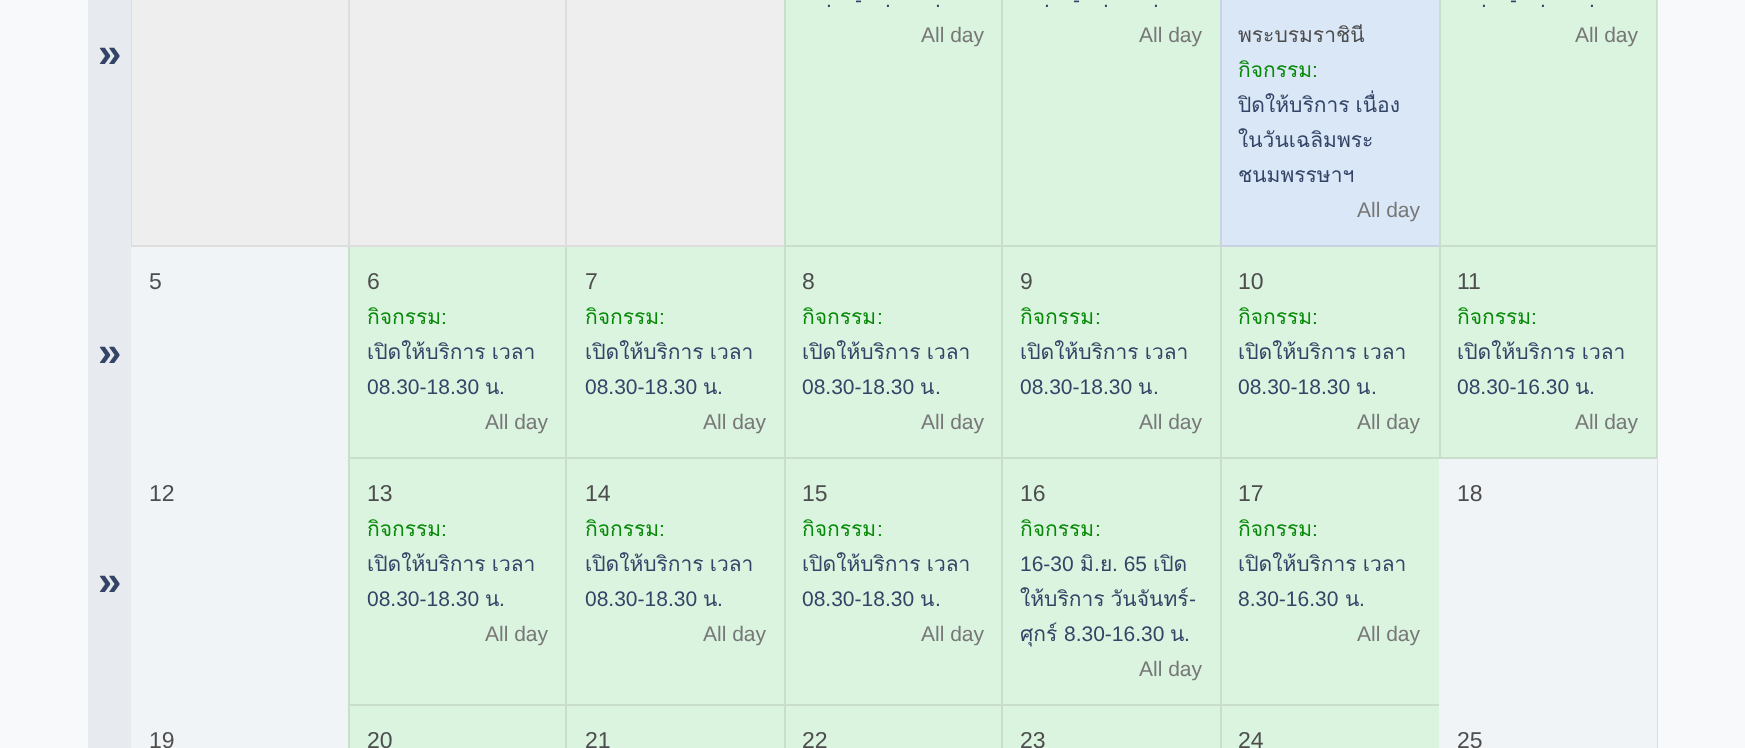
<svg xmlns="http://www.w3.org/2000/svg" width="1745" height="748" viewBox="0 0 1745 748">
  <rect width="100%" height="100%" fill="rgb(248,249,250)"/>
  <rect x="1222" y="706" width="217" height="42" fill="rgb(219,244,224)"/>
  <rect x="1003" y="706" width="217" height="42" fill="rgb(219,244,224)"/>
  <rect x="786" y="706" width="215" height="42" fill="rgb(219,244,224)"/>
  <rect x="567" y="706" width="217" height="42" fill="rgb(219,244,224)"/>
  <rect x="350" y="706" width="215" height="42" fill="rgb(219,244,224)"/>
  <rect x="1222" y="459" width="217" height="245" fill="rgb(219,244,224)"/>
  <rect x="1003" y="459" width="217" height="245" fill="rgb(219,244,224)"/>
  <rect x="786" y="459" width="215" height="245" fill="rgb(219,244,224)"/>
  <rect x="567" y="459" width="217" height="245" fill="rgb(219,244,224)"/>
  <rect x="350" y="459" width="215" height="245" fill="rgb(219,244,224)"/>
  <rect x="1441" y="247" width="215" height="210" fill="rgb(219,244,224)"/>
  <rect x="1222" y="247" width="217" height="210" fill="rgb(219,244,224)"/>
  <rect x="1003" y="247" width="217" height="210" fill="rgb(219,244,224)"/>
  <rect x="786" y="247" width="215" height="210" fill="rgb(219,244,224)"/>
  <rect x="567" y="247" width="217" height="210" fill="rgb(219,244,224)"/>
  <rect x="350" y="247" width="215" height="210" fill="rgb(219,244,224)"/>
  <rect x="1441" y="0" width="215" height="245" fill="rgb(219,244,224)"/>
  <rect x="1222" y="0" width="217" height="245" fill="rgb(218,231,247)"/>
  <rect x="1003" y="0" width="217" height="245" fill="rgb(219,244,224)"/>
  <rect x="786" y="0" width="215" height="245" fill="rgb(219,244,224)"/>
  <rect x="1657" y="0" width="1" height="748" fill="rgb(221,221,221)"/>
  <rect x="1656" y="0" width="1" height="459" fill="rgb(202,223,201)"/>
  <rect x="784" y="245" width="436" height="2" fill="rgb(202,223,201)"/>
  <rect x="130" y="245" width="656" height="2" fill="rgb(221,221,221)"/>
  <rect x="88" y="0" width="43" height="748" fill="rgb(231,234,239)"/>
  <text x="98" y="67" font-family="Liberation Sans" font-size="42" font-weight="bold" fill="rgb(51,68,102)">»</text>
  <rect x="132" y="0" width="216" height="245" fill="rgb(238,238,238)"/>
  <rect x="131" y="0" width="1" height="247" fill="rgb(221,221,221)"/>
  <rect x="350" y="0" width="215" height="245" fill="rgb(238,238,238)"/>
  <rect x="348" y="0" width="2" height="247" fill="rgb(221,221,221)"/>
  <rect x="567" y="0" width="217" height="245" fill="rgb(238,238,238)"/>
  <rect x="565" y="0" width="2" height="247" fill="rgb(221,221,221)"/>
  <rect x="784" y="0" width="2" height="247" fill="rgb(202,223,201)"/>
  <g font-family="Liberation Sans" font-size="21" fill="rgb(51,68,102)">
    <text x="855" y="7">-</text>
    <text x="826" y="7">.</text>
    <text x="885" y="7">.</text>
    <text x="935" y="7">.</text>
  </g>
  <text x="921" y="42" font-family="Liberation Sans" font-size="21" fill="rgb(119,119,119)">All day</text>
  <rect x="1001" y="0" width="2" height="247" fill="rgb(202,223,201)"/>
  <g font-family="Liberation Sans" font-size="21" fill="rgb(51,68,102)">
    <text x="1073" y="7">-</text>
    <text x="1044" y="7">.</text>
    <text x="1103" y="7">.</text>
    <text x="1153" y="7">.</text>
  </g>
  <text x="1139" y="42" font-family="Liberation Sans" font-size="21" fill="rgb(119,119,119)">All day</text>
  <rect x="1220" y="245" width="219" height="2" fill="rgb(201,210,223)"/>
  <rect x="1220" y="0" width="2" height="247" fill="rgb(201,210,223)"/>
  <text x="1238" y="42" font-family="Loma" font-size="21" fill="rgb(77,77,77)">พระบรมราชินี</text>
  <text x="1238" y="77" font-family="Loma" font-size="21" fill="rgb(7,137,7)">กิจกรรม</text>
  <text x="1312" y="77" font-family="Liberation Sans" font-size="21" fill="rgb(7,137,7)">:</text>
  <g font-family="Loma" font-size="21" fill="rgb(51,68,102)">
    <text>
      <tspan x="1238" y="112" word-spacing="-1">ปิดให้บริการ เนื่อง</tspan>
      <tspan x="1238" y="147">ในวันเฉลิมพระ</tspan>
      <tspan x="1238" y="182">ชนมพรรษาฯ</tspan>
    </text>
  </g>
  <text x="1357" y="217" font-family="Liberation Sans" font-size="21" fill="rgb(119,119,119)">All day</text>
  <g font-family="Liberation Sans" font-size="21" fill="rgb(51,68,102)">
    <text x="1510" y="7">-</text>
    <text x="1481" y="7">.</text>
    <text x="1540" y="7">.</text>
    <text x="1589" y="7">.</text>
  </g>
  <text x="1575" y="42" font-family="Liberation Sans" font-size="21" fill="rgb(119,119,119)">All day</text>
  <text x="98" y="366" font-family="Liberation Sans" font-size="42" font-weight="bold" fill="rgb(51,68,102)">»</text>
  <rect x="131" y="247" width="217" height="501" fill="rgb(240,244,247)"/>
  <text x="149" y="289" font-family="Liberation Sans" font-size="23" fill="rgb(77,77,77)">5</text>
  <rect x="348" y="457" width="1309" height="2" fill="rgb(202,223,201)"/>
  <rect x="348" y="247" width="2" height="212" fill="rgb(202,223,201)"/>
  <text x="367" y="289" font-family="Liberation Sans" font-size="23" fill="rgb(77,77,77)">6</text>
  <text x="367" y="324" font-family="Loma" font-size="21" fill="rgb(7,137,7)">กิจกรรม</text>
  <text x="441" y="324" font-family="Liberation Sans" font-size="21" fill="rgb(7,137,7)">:</text>
  <text x="367" y="359" word-spacing="-1" font-family="Loma" font-size="21" fill="rgb(51,68,102)">เปิดให้บริการ เวลา</text>
  <text x="367" y="394" font-family="Liberation Sans" font-size="21" fill="rgb(51,68,102)">08.30-18.30</text>
  <text x="485" y="394" font-family="Loma" font-size="21" fill="rgb(51,68,102)">น</text>
  <text x="499" y="394" font-family="Liberation Sans" font-size="21" fill="rgb(51,68,102)">.</text>
  <text x="485" y="429" font-family="Liberation Sans" font-size="21" fill="rgb(119,119,119)">All day</text>
  <text x="585" y="289" font-family="Liberation Sans" font-size="23" fill="rgb(77,77,77)">7</text>
  <text x="585" y="324" font-family="Loma" font-size="21" fill="rgb(7,137,7)">กิจกรรม</text>
  <text x="659" y="324" font-family="Liberation Sans" font-size="21" fill="rgb(7,137,7)">:</text>
  <text x="585" y="359" word-spacing="-1" font-family="Loma" font-size="21" fill="rgb(51,68,102)">เปิดให้บริการ เวลา</text>
  <text x="585" y="394" font-family="Liberation Sans" font-size="21" fill="rgb(51,68,102)">08.30-18.30</text>
  <text x="703" y="394" font-family="Loma" font-size="21" fill="rgb(51,68,102)">น</text>
  <text x="717" y="394" font-family="Liberation Sans" font-size="21" fill="rgb(51,68,102)">.</text>
  <text x="703" y="429" font-family="Liberation Sans" font-size="21" fill="rgb(119,119,119)">All day</text>
  <rect x="784" y="247" width="2" height="212" fill="rgb(202,223,201)"/>
  <text x="802" y="289" font-family="Liberation Sans" font-size="23" fill="rgb(77,77,77)">8</text>
  <text x="802" y="324" font-family="Loma" font-size="21" fill="rgb(7,137,7)">กิจกรรม</text>
  <text x="877" y="324" font-family="Liberation Sans" font-size="21" fill="rgb(7,137,7)">:</text>
  <text x="802" y="359" word-spacing="-1" font-family="Loma" font-size="21" fill="rgb(51,68,102)">เปิดให้บริการ เวลา</text>
  <text x="802" y="394" font-family="Liberation Sans" font-size="21" fill="rgb(51,68,102)">08.30-18.30</text>
  <text x="920" y="394" font-family="Loma" font-size="21" fill="rgb(51,68,102)">น</text>
  <text x="935" y="394" font-family="Liberation Sans" font-size="21" fill="rgb(51,68,102)">.</text>
  <text x="921" y="429" font-family="Liberation Sans" font-size="21" fill="rgb(119,119,119)">All day</text>
  <text x="1020" y="289" font-family="Liberation Sans" font-size="23" fill="rgb(77,77,77)">9</text>
  <text x="1020" y="324" font-family="Loma" font-size="21" fill="rgb(7,137,7)">กิจกรรม</text>
  <text x="1095" y="324" font-family="Liberation Sans" font-size="21" fill="rgb(7,137,7)">:</text>
  <text x="1020" y="359" word-spacing="-1" font-family="Loma" font-size="21" fill="rgb(51,68,102)">เปิดให้บริการ เวลา</text>
  <text x="1020" y="394" font-family="Liberation Sans" font-size="21" fill="rgb(51,68,102)">08.30-18.30</text>
  <text x="1138" y="394" font-family="Loma" font-size="21" fill="rgb(51,68,102)">น</text>
  <text x="1153" y="394" font-family="Liberation Sans" font-size="21" fill="rgb(51,68,102)">.</text>
  <text x="1139" y="429" font-family="Liberation Sans" font-size="21" fill="rgb(119,119,119)">All day</text>
  <rect x="1220" y="247" width="2" height="212" fill="rgb(202,223,201)"/>
  <text x="1238" y="289" font-family="Liberation Sans" font-size="23" fill="rgb(77,77,77)">10</text>
  <text x="1238" y="324" font-family="Loma" font-size="21" fill="rgb(7,137,7)">กิจกรรม</text>
  <text x="1312" y="324" font-family="Liberation Sans" font-size="21" fill="rgb(7,137,7)">:</text>
  <text x="1238" y="359" word-spacing="-1" font-family="Loma" font-size="21" fill="rgb(51,68,102)">เปิดให้บริการ เวลา</text>
  <text x="1238" y="394" font-family="Liberation Sans" font-size="21" fill="rgb(51,68,102)">08.30-18.30</text>
  <text x="1356" y="394" font-family="Loma" font-size="21" fill="rgb(51,68,102)">น</text>
  <text x="1371" y="394" font-family="Liberation Sans" font-size="21" fill="rgb(51,68,102)">.</text>
  <text x="1357" y="429" font-family="Liberation Sans" font-size="21" fill="rgb(119,119,119)">All day</text>
  <rect x="1439" y="245" width="218" height="2" fill="rgb(202,223,201)"/>
  <rect x="1439" y="0" width="2" height="459" fill="rgb(202,223,201)"/>
  <text x="1457" y="289" font-family="Liberation Sans" font-size="23" fill="rgb(77,77,77)">11</text>
  <text x="1457" y="324" font-family="Loma" font-size="21" fill="rgb(7,137,7)">กิจกรรม</text>
  <text x="1531" y="324" font-family="Liberation Sans" font-size="21" fill="rgb(7,137,7)">:</text>
  <text x="1457" y="359" word-spacing="-1" font-family="Loma" font-size="21" fill="rgb(51,68,102)">เปิดให้บริการ เวลา</text>
  <text x="1457" y="394" font-family="Liberation Sans" font-size="21" fill="rgb(51,68,102)">08.30-16.30</text>
  <text x="1575" y="394" font-family="Loma" font-size="21" fill="rgb(51,68,102)">น</text>
  <text x="1589" y="394" font-family="Liberation Sans" font-size="21" fill="rgb(51,68,102)">.</text>
  <text x="1575" y="429" font-family="Liberation Sans" font-size="21" fill="rgb(119,119,119)">All day</text>
  <g font-family="Liberation Sans" font-size="23" fill="rgb(77,77,77)">
    <text x="149" y="501">12</text>
    <text x="367" y="501">13</text>
  </g>
  <text x="367" y="536" font-family="Loma" font-size="21" fill="rgb(7,137,7)">กิจกรรม</text>
  <text x="441" y="536" font-family="Liberation Sans" font-size="21" fill="rgb(7,137,7)">:</text>
  <text x="367" y="571" word-spacing="-1" font-family="Loma" font-size="21" fill="rgb(51,68,102)">เปิดให้บริการ เวลา</text>
  <text x="367" y="606" font-family="Liberation Sans" font-size="21" fill="rgb(51,68,102)">08.30-18.30</text>
  <text x="485" y="606" font-family="Loma" font-size="21" fill="rgb(51,68,102)">น</text>
  <text x="499" y="606" font-family="Liberation Sans" font-size="21" fill="rgb(51,68,102)">.</text>
  <text x="485" y="641" font-family="Liberation Sans" font-size="21" fill="rgb(119,119,119)">All day</text>
  <rect x="565" y="705" width="2" height="43" fill="rgb(202,223,201)"/>
  <rect x="348" y="704" width="219" height="2" fill="rgb(202,223,201)"/>
  <rect x="565" y="247" width="2" height="458" fill="rgb(202,223,201)"/>
  <text x="585" y="501" font-family="Liberation Sans" font-size="23" fill="rgb(77,77,77)">14</text>
  <text x="585" y="536" font-family="Loma" font-size="21" fill="rgb(7,137,7)">กิจกรรม</text>
  <text x="659" y="536" font-family="Liberation Sans" font-size="21" fill="rgb(7,137,7)">:</text>
  <text x="585" y="571" word-spacing="-1" font-family="Loma" font-size="21" fill="rgb(51,68,102)">เปิดให้บริการ เวลา</text>
  <text x="585" y="606" font-family="Liberation Sans" font-size="21" fill="rgb(51,68,102)">08.30-18.30</text>
  <text x="703" y="606" font-family="Loma" font-size="21" fill="rgb(51,68,102)">น</text>
  <text x="717" y="606" font-family="Liberation Sans" font-size="21" fill="rgb(51,68,102)">.</text>
  <text x="703" y="641" font-family="Liberation Sans" font-size="21" fill="rgb(119,119,119)">All day</text>
  <text x="802" y="501" font-family="Liberation Sans" font-size="23" fill="rgb(77,77,77)">15</text>
  <text x="802" y="536" font-family="Loma" font-size="21" fill="rgb(7,137,7)">กิจกรรม</text>
  <text x="877" y="536" font-family="Liberation Sans" font-size="21" fill="rgb(7,137,7)">:</text>
  <text x="802" y="571" word-spacing="-1" font-family="Loma" font-size="21" fill="rgb(51,68,102)">เปิดให้บริการ เวลา</text>
  <text x="802" y="606" font-family="Liberation Sans" font-size="21" fill="rgb(51,68,102)">08.30-18.30</text>
  <text x="920" y="606" font-family="Loma" font-size="21" fill="rgb(51,68,102)">น</text>
  <text x="935" y="606" font-family="Liberation Sans" font-size="21" fill="rgb(51,68,102)">.</text>
  <text x="921" y="641" font-family="Liberation Sans" font-size="21" fill="rgb(119,119,119)">All day</text>
  <rect x="1001" y="705" width="2" height="43" fill="rgb(202,223,201)"/>
  <rect x="784" y="704" width="219" height="2" fill="rgb(202,223,201)"/>
  <rect x="1001" y="247" width="2" height="458" fill="rgb(202,223,201)"/>
  <text x="1020" y="501" font-family="Liberation Sans" font-size="23" fill="rgb(77,77,77)">16</text>
  <text x="1020" y="536" font-family="Loma" font-size="21" fill="rgb(7,137,7)">กิจกรรม</text>
  <text x="1095" y="536" font-family="Liberation Sans" font-size="21" fill="rgb(7,137,7)">:</text>
  <text x="1020" y="571" font-family="Liberation Sans" font-size="21" fill="rgb(51,68,102)">16-30</text>
  <text x="1080" y="571" font-family="Loma" font-size="21" fill="rgb(51,68,102)">มิ</text>
  <text x="1094" y="571" font-family="Liberation Sans" font-size="21" fill="rgb(51,68,102)">.</text>
  <text x="1100" y="571" font-family="Loma" font-size="21" fill="rgb(51,68,102)">ย</text>
  <text x="1112" y="571" font-family="Liberation Sans" font-size="21" fill="rgb(51,68,102)">. 65</text>
  <g font-family="Loma" font-size="21" fill="rgb(51,68,102)">
    <text x="1153" y="571">เปิด</text>
    <text x="1020" y="606" word-spacing="-1">ให้บริการ วันจันทร์</text>
  </g>
  <text x="1189" y="606" font-family="Liberation Sans" font-size="21" fill="rgb(51,68,102)">-</text>
  <text x="1020" y="641" font-family="Loma" font-size="21" fill="rgb(51,68,102)">ศุกร์</text>
  <text x="1064" y="641" font-family="Liberation Sans" font-size="21" fill="rgb(51,68,102)">8.30-16.30</text>
  <text x="1170" y="641" font-family="Loma" font-size="21" fill="rgb(51,68,102)">น</text>
  <text x="1184" y="641" font-family="Liberation Sans" font-size="21" fill="rgb(51,68,102)">.</text>
  <text x="1139" y="676" font-family="Liberation Sans" font-size="21" fill="rgb(119,119,119)">All day</text>
  <text x="1238" y="501" font-family="Liberation Sans" font-size="23" fill="rgb(77,77,77)">17</text>
  <text x="1238" y="536" font-family="Loma" font-size="21" fill="rgb(7,137,7)">กิจกรรม</text>
  <text x="1312" y="536" font-family="Liberation Sans" font-size="21" fill="rgb(7,137,7)">:</text>
  <text x="1238" y="571" word-spacing="-1" font-family="Loma" font-size="21" fill="rgb(51,68,102)">เปิดให้บริการ เวลา</text>
  <text x="1238" y="606" font-family="Liberation Sans" font-size="21" fill="rgb(51,68,102)">8.30-16.30</text>
  <text x="1345" y="606" font-family="Loma" font-size="21" fill="rgb(51,68,102)">น</text>
  <text x="1359" y="606" font-family="Liberation Sans" font-size="21" fill="rgb(51,68,102)">.</text>
  <text x="1357" y="641" font-family="Liberation Sans" font-size="21" fill="rgb(119,119,119)">All day</text>
  <rect x="1439" y="459" width="218" height="289" fill="rgb(240,244,247)"/>
  <text x="1457" y="501" font-family="Liberation Sans" font-size="23" fill="rgb(77,77,77)">18</text>
  <text x="98" y="595" font-family="Liberation Sans" font-size="42" font-weight="bold" fill="rgb(51,68,102)">»</text>
  <text x="149" y="748" font-family="Liberation Sans" font-size="23" fill="rgb(77,77,77)">19</text>
  <rect x="348" y="459" width="2" height="289" fill="rgb(202,223,201)"/>
  <text x="367" y="748" font-family="Liberation Sans" font-size="23" fill="rgb(77,77,77)">20</text>
  <rect x="567" y="704" width="217" height="2" fill="rgb(202,223,201)"/>
  <text x="585" y="748" font-family="Liberation Sans" font-size="23" fill="rgb(77,77,77)">21</text>
  <rect x="784" y="459" width="2" height="289" fill="rgb(202,223,201)"/>
  <text x="802" y="748" font-family="Liberation Sans" font-size="23" fill="rgb(77,77,77)">22</text>
  <rect x="1003" y="704" width="217" height="2" fill="rgb(202,223,201)"/>
  <text x="1020" y="748" font-family="Liberation Sans" font-size="23" fill="rgb(77,77,77)">23</text>
  <rect x="1220" y="704" width="219" height="2" fill="rgb(202,223,201)"/>
  <rect x="1220" y="459" width="2" height="289" fill="rgb(202,223,201)"/>
  <g font-family="Liberation Sans" font-size="23" fill="rgb(77,77,77)">
    <text x="1238" y="748">24</text>
    <text x="1457" y="748">25</text>
  </g>
</svg>
